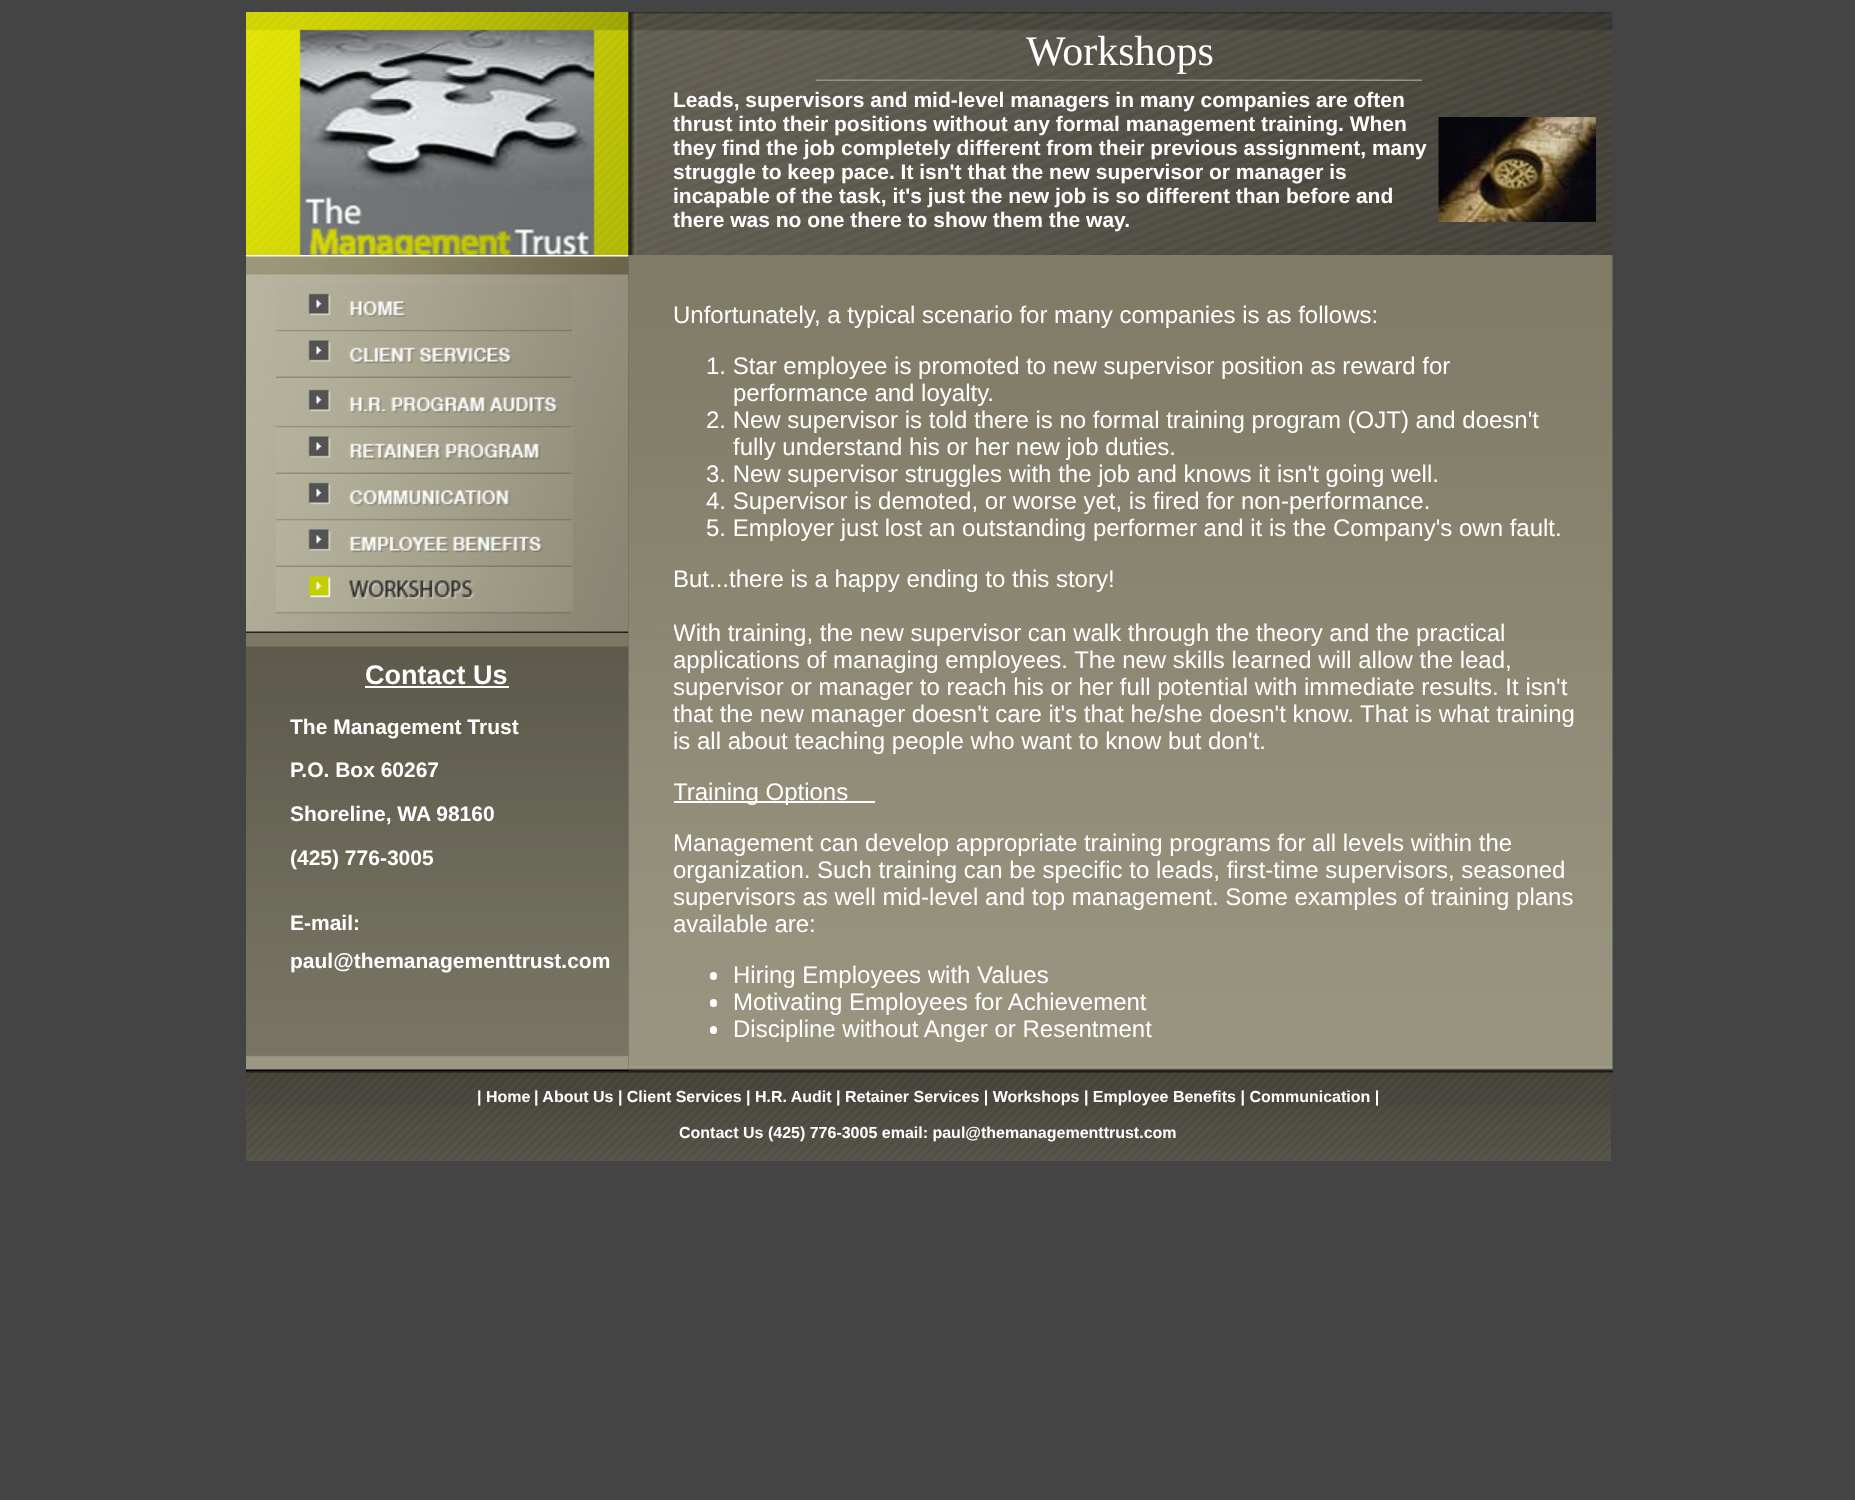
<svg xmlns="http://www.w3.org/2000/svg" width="1855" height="1500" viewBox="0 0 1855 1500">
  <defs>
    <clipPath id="clip1"><rect x="674" y="278" width="937" height="765"/></clipPath>
  </defs>
  <rect width="100%" height="100%" fill="rgb(68,68,68)"/>
  <image x="246" y="12" width="383" height="243" href="pic1.png"/>
  <image x="628" y="12" width="985" height="243" href="pic2.png"/>
  <text x="1026" y="65" font-family="Liberation Serif" font-size="42" fill="rgb(255,255,255)">Workshops</text>
  <image x="816" y="79" width="606" height="2" href="pic3.png"/>
  <g font-family="Liberation Sans" font-size="21" font-weight="bold" fill="rgb(255,255,255)">
    <text>
      <tspan x="673" y="107">Leads, supervisors and mid-level managers in many companies are often</tspan>
      <tspan x="673" y="131">thrust into their positions without any formal management training. When</tspan>
      <tspan x="673" y="155">they find the job completely different from their previous assignment, many</tspan>
      <tspan x="673" y="179">struggle to keep pace. It isn't that the new supervisor or manager is</tspan>
      <tspan x="673" y="203">incapable of the task, it's just the new job is so different than before and</tspan>
      <tspan x="673" y="227">there was no one there to show them the way.</tspan>
    </text>
  </g>
  <image x="1438" y="117" width="158" height="105" href="pic4.png"/>
  <image x="246" y="255" width="383" height="378" href="pic5.png"/>
  <image x="276" y="285" width="296" height="47" href="pic6.png"/>
  <image x="276" y="331" width="297" height="47" href="pic7.png"/>
  <image x="276" y="378" width="297" height="50" href="pic8.png"/>
  <image x="276" y="427" width="297" height="47" href="pic9.png"/>
  <image x="276" y="474" width="297" height="47" href="pic10.png"/>
  <image x="276" y="520" width="297" height="47" href="pic11.png"/>
  <image x="276" y="567" width="297" height="47" href="pic12.png"/>
  <image x="246" y="633" width="383" height="438" href="pic14.png"/>
  <image x="628" y="255" width="985" height="818" href="pic13.png"/>
  <g font-family="Liberation Sans" font-size="24" fill="rgb(255,255,255)">
    <text x="673" y="323">Unfortunately, a typical scenario for many companies is as follows:</text>
    <text x="706" y="374">1. Star employee is promoted to new supervisor position as reward for</text>
    <text x="733" y="401">performance and loyalty.</text>
    <text x="706" y="428">2. New supervisor is told there is no formal training program (OJT) and doesn't</text>
    <text x="733" y="455">fully understand his or her new job duties.</text>
    <text>
      <tspan x="706" y="482">3. New supervisor struggles with the job and knows it isn't going well.</tspan>
      <tspan x="706" y="509">4. Supervisor is demoted, or worse yet, is fired for non-performance.</tspan>
      <tspan x="706" y="536">5. Employer just lost an outstanding performer and it is the Company's own fault.</tspan>
    </text>
    <text x="673" y="587">But...there is a happy ending to this story!</text>
  </g>
  <g clip-path="url(#clip1)">
    <g font-family="Liberation Sans" font-size="24" fill="rgb(255,255,255)">
      <text>
        <tspan x="673" y="641">With training, the new supervisor can walk through the theory and the practical</tspan>
        <tspan x="673" y="668">applications of managing employees. The new skills learned will allow the lead,</tspan>
      </text>
    </g>
  </g>
  <g font-family="Liberation Sans" font-size="24" fill="rgb(255,255,255)">
    <text>
      <tspan x="673" y="695">supervisor or manager to reach his or her full potential with immediate results. It isn't</tspan>
      <tspan x="673" y="722">that the new manager doesn't care it's that he/she doesn't know. That is what training</tspan>
      <tspan x="673" y="749">is all about teaching people who want to know but don't.</tspan>
    </text>
  </g>
  <rect x="674" y="801" width="201" height="2" fill="rgb(255,255,255)"/>
  <g clip-path="url(#clip1)">
    <text x="673" y="800" font-family="Liberation Sans" font-size="24" fill="rgb(255,255,255)">Training Options</text>
  </g>
  <text x="673" y="851" font-family="Liberation Sans" font-size="24" fill="rgb(255,255,255)">Management can develop appropriate training programs for all levels within the</text>
  <g clip-path="url(#clip1)">
    <text x="673" y="878" font-family="Liberation Sans" font-size="24" fill="rgb(255,255,255)">organization. Such training can be specific to leads, first-time supervisors, seasoned</text>
  </g>
  <text x="673" y="905" font-family="Liberation Sans" font-size="24" fill="rgb(255,255,255)">supervisors as well mid-level and top management. Some examples of training plans</text>
  <g clip-path="url(#clip1)">
    <text x="673" y="932" font-family="Liberation Sans" font-size="24" fill="rgb(255,255,255)">available are:</text>
  </g>
  <rect x="710" y="972" width="7" height="8" rx="3.5" fill="rgb(255,255,255)"/>
  <text x="733" y="983" font-family="Liberation Sans" font-size="24" fill="rgb(255,255,255)">Hiring Employees with Values</text>
  <rect x="710" y="999" width="7" height="8" rx="3.5" fill="rgb(255,255,255)"/>
  <text x="733" y="1010" font-family="Liberation Sans" font-size="24" fill="rgb(255,255,255)">Motivating Employees for Achievement</text>
  <rect x="710" y="1026" width="7" height="8" rx="3.5" fill="rgb(255,255,255)"/>
  <text x="733" y="1037" font-family="Liberation Sans" font-size="24" fill="rgb(255,255,255)">Discipline without Anger or Resentment</text>
  <text x="365" y="684" font-family="Liberation Sans" font-size="27" font-weight="bold" fill="rgb(255,255,255)">Contact Us</text>
  <rect x="365" y="686" width="144" height="2" fill="rgb(255,255,255)"/>
  <g font-family="Liberation Sans" font-size="21" font-weight="bold" fill="rgb(255,255,255)">
    <text x="290" y="734">The Management Trust</text>
    <text x="290" y="777">P.O. Box 60267</text>
    <text x="290" y="821">Shoreline, WA 98160</text>
    <text x="290" y="865">(425) 776-3005</text>
    <text>
      <tspan x="290" y="930">E-mail:</tspan>
      <tspan x="290" y="968">paul@themanagementtrust.com</tspan>
    </text>
  </g>
  <image x="246" y="1071" width="1365" height="90" href="pic15.png"/>
  <g font-family="Liberation Sans" font-size="16" font-weight="bold" fill="rgb(255,255,255)">
    <text x="477" y="1102">| Home</text>
    <text x="534" y="1102">| About Us | Client Services | H.R. Audit | Retainer Services | Workshops | Employee Benefits | Communication |</text>
    <text x="679" y="1138">Contact Us (425) 776-3005 email: paul@themanagementtrust.com</text>
  </g>
</svg>
